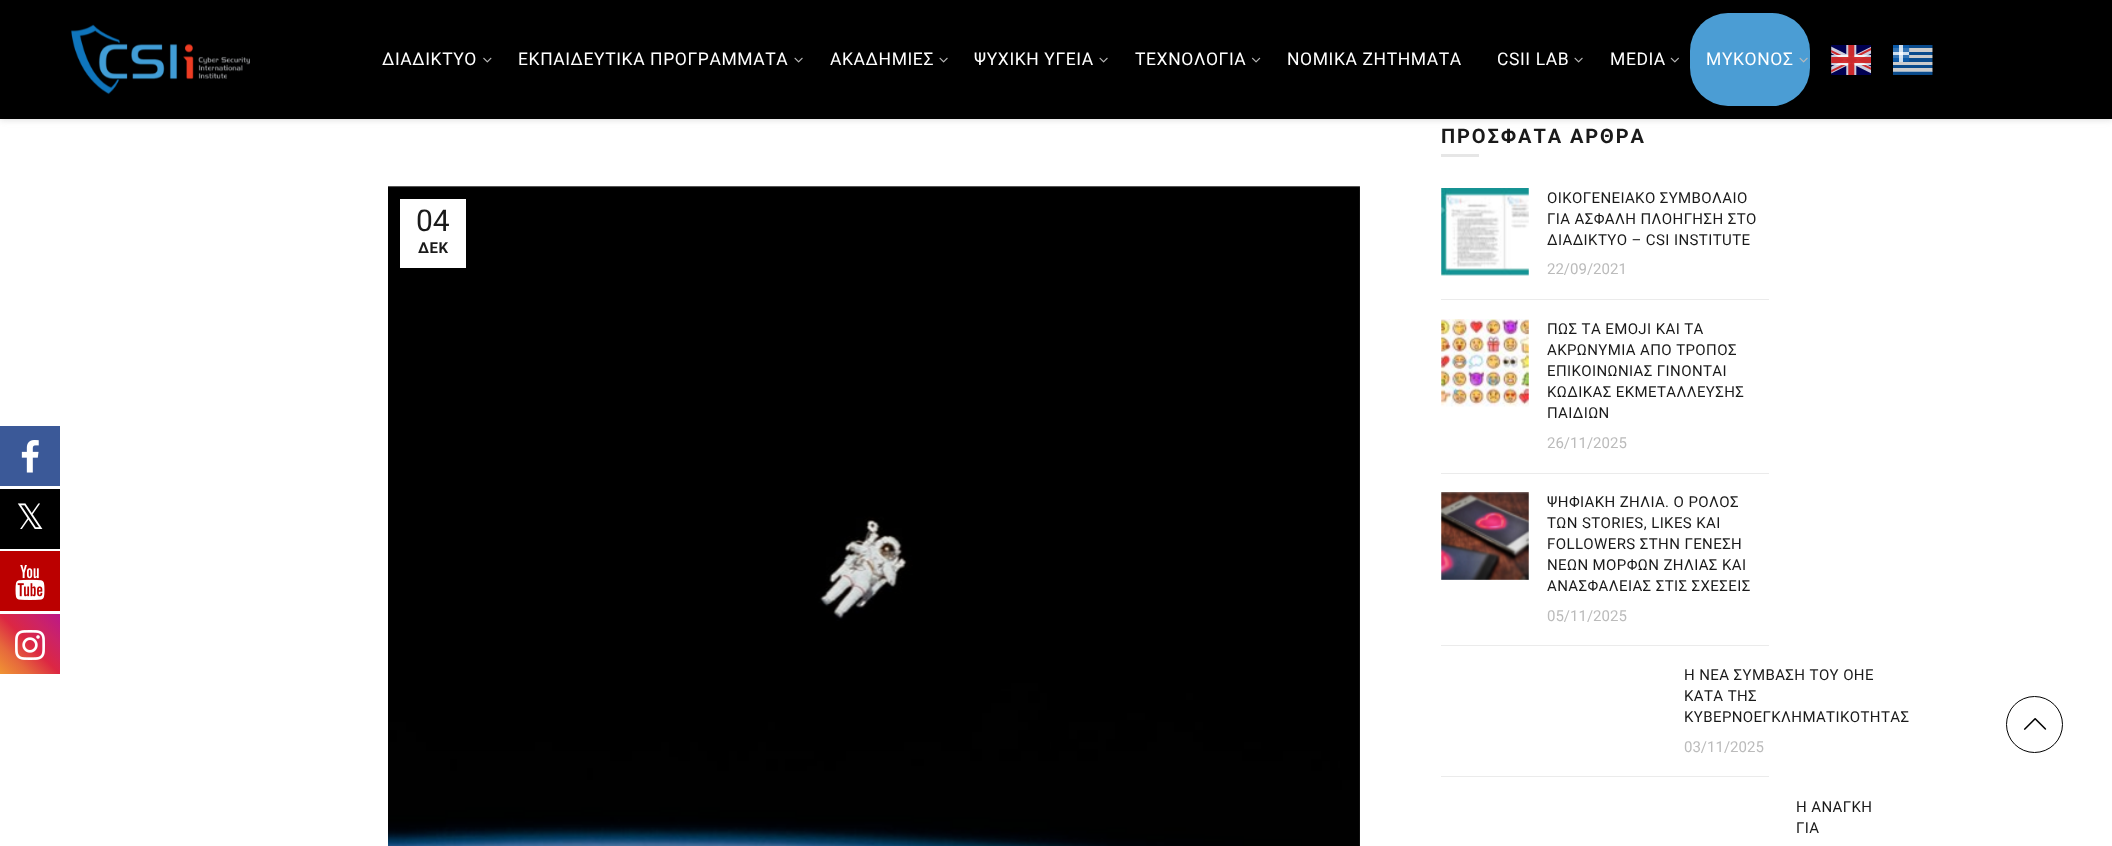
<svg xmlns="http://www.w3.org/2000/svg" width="2112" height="846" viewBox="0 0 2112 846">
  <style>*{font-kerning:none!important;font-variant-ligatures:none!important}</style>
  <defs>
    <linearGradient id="g1" gradientUnits="userSpaceOnUse" x1="0" y1="674" x2="60" y2="614"><stop offset="0" stop-color="rgb(240,148,51)"/><stop offset="0.25" stop-color="rgb(230,104,60)"/><stop offset="0.5" stop-color="rgb(220,39,67)"/><stop offset="0.75" stop-color="rgb(204,35,102)"/><stop offset="1" stop-color="rgb(188,24,136)"/></linearGradient>
  </defs>
  <rect width="100%" height="100%" fill="rgb(255,255,255)"/>
  <rect x="0" y="426" width="60" height="60" fill="rgb(59,89,152)"/>
  <image x="21" y="440" width="18" height="33" href="pic1.png"/>
  <rect x="0" y="489" width="60" height="60" fill="rgb(0,0,0)"/>
  <text x="16" y="529" font-family="DejaVu Sans" font-size="35" fill="rgb(255,255,255)">𝕏</text>
  <rect x="0" y="551" width="60" height="60" fill="rgb(187,0,0)"/>
  <image x="15" y="565" width="30" height="35" href="pic2.png"/>
  <rect x="0" y="614" width="60" height="60" fill="url(#g1)"/>
  <image x="15" y="630" width="30" height="30" href="pic3.png"/>
  <rect x="0" y="1" width="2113" height="119" fill="rgba(190,190,190,0.5)" filter="blur(3px)"/>
  <rect x="0" y="0" width="2112" height="119" fill="rgb(0,0,0)"/>
  <image x="71" y="24" width="179" height="71" href="pic4.png"/>
  <text x="382" y="65" font-family="Roboto" font-size="17.5" letter-spacing="0.6" fill="rgb(255,255,255)">ΔΙΑΔΙΚΤΥΟ</text>
  <image x="483" y="57" width="9" height="6" href="pic5.png"/>
  <text x="518" y="65" font-family="Roboto" font-size="17.5" letter-spacing="0.6" fill="rgb(255,255,255)">ΕΚΠΑΙΔΕΥΤΙΚΑ ΠΡΟΓΡΑΜΜΑΤΑ</text>
  <image x="794" y="57" width="9" height="6" href="pic6.png"/>
  <text x="830" y="65" font-family="Roboto" font-size="17.5" letter-spacing="0.6" fill="rgb(255,255,255)">ΑΚΑΔΗΜΙΕΣ</text>
  <image x="939" y="57" width="9" height="6" href="pic6.png"/>
  <text x="974" y="65" font-family="Roboto" font-size="17.5" letter-spacing="0.6" fill="rgb(255,255,255)">ΨΥΧΙΚΗ ΥΓΕΙΑ</text>
  <image x="1099" y="57" width="9" height="6" href="pic6.png"/>
  <text x="1135" y="65" font-family="Roboto" font-size="17.5" letter-spacing="0.6" fill="rgb(255,255,255)">ΤΕΧΝΟΛΟΓΙΑ</text>
  <image x="1251" y="57" width="10" height="6" href="pic7.png"/>
  <g font-family="Roboto" font-size="17.5" letter-spacing="0.6" fill="rgb(255,255,255)">
    <text x="1287" y="65">ΝΟΜΙΚΑ ΖΗΤΗΜΑΤΑ</text>
    <text x="1497" y="65">CSII LAB</text>
  </g>
  <image x="1574" y="57" width="9" height="6" href="pic6.png"/>
  <text x="1610" y="65" font-family="Roboto" font-size="17.5" letter-spacing="0.6" fill="rgb(255,255,255)">MEDIA</text>
  <image x="1670" y="57" width="9" height="6" href="pic8.png"/>
  <rect x="1690" y="13" width="120" height="93" rx="38" fill="rgb(75,157,212)"/>
  <text x="1706" y="65" font-family="Roboto" font-size="17.5" letter-spacing="0.6" fill="rgb(255,255,255)">ΜΥΚΟΝΟΣ</text>
  <image x="1799" y="57" width="9" height="6" href="pic9.png"/>
  <image x="1831" y="45" width="40" height="30" href="pic10.png"/>
  <image x="1893" y="45" width="40" height="30" href="pic11.png"/>
  <image x="388" y="186" width="972" height="660" href="pic12.png"/>
  <rect x="400" y="199" width="66" height="69" fill="rgb(255,255,255)"/>
  <text x="416" y="231" font-family="Roboto" font-size="30" fill="rgb(26,26,26)">04</text>
  <text x="418" y="253" font-family="Roboto" font-size="15" font-weight="bold" letter-spacing="0.6" fill="rgb(26,26,26)">ΔΕΚ</text>
  <text x="1441" y="143" font-family="Roboto" font-size="20" font-weight="bold" letter-spacing="1.9" fill="rgb(26,26,26)">ΠΡΟΣΦΑΤΑ ΑΡΘΡΑ</text>
  <rect x="1441" y="154" width="38" height="3" fill="rgb(230,230,230)"/>
  <rect x="1441" y="299" width="328" height="1" fill="rgb(235,235,235)"/>
  <image x="1441" y="188" width="88" height="88" href="pic13.png"/>
  <g font-family="Roboto" font-size="15" letter-spacing="0.4" fill="rgb(26,26,26)">
    <text>
      <tspan x="1547" y="203">ΟΙΚΟΓΕΝΕΙΑΚΟ ΣΥΜΒΟΛΑΙΟ</tspan>
      <tspan x="1547" y="224">ΓΙΑ ΑΣΦΑΛΗ ΠΛΟΗΓΗΣΗ ΣΤΟ</tspan>
      <tspan x="1547" y="245">ΔΙΑΔΙΚΤΥΟ – CSI INSTITUTE</tspan>
    </text>
  </g>
  <text x="1547" y="274" font-family="Roboto" font-size="15" fill="rgb(187,187,187)">22/09/2021</text>
  <rect x="1441" y="473" width="328" height="1" fill="rgb(235,235,235)"/>
  <image x="1441" y="319" width="88" height="88" href="pic14.png"/>
  <g font-family="Roboto" font-size="15" letter-spacing="0.4" fill="rgb(26,26,26)">
    <text>
      <tspan x="1547" y="334">ΠΩΣ ΤΑ EMOJI ΚΑΙ ΤΑ</tspan>
      <tspan x="1547" y="355">ΑΚΡΩΝΥΜΙΑ ΑΠΟ ΤΡΟΠΟΣ</tspan>
      <tspan x="1547" y="376">ΕΠΙΚΟΙΝΩΝΙΑΣ ΓΙΝΟΝΤΑΙ</tspan>
      <tspan x="1547" y="397">ΚΩΔΙΚΑΣ ΕΚΜΕΤΑΛΛΕΥΣΗΣ</tspan>
      <tspan x="1547" y="418">ΠΑΙΔΙΩΝ</tspan>
    </text>
  </g>
  <text x="1547" y="448" font-family="Roboto" font-size="15" fill="rgb(187,187,187)">26/11/2025</text>
  <rect x="1441" y="645" width="328" height="1" fill="rgb(235,235,235)"/>
  <image x="1441" y="492" width="88" height="88" href="pic15.png"/>
  <g font-family="Roboto" font-size="15" letter-spacing="0.4" fill="rgb(26,26,26)">
    <text>
      <tspan x="1547" y="507">ΨΗΦΙΑΚΗ ΖΗΛΙΑ. Ο ΡΟΛΟΣ</tspan>
      <tspan x="1547" y="528">ΤΩΝ STORIES, LIKES ΚΑΙ</tspan>
      <tspan x="1547" y="549">FOLLOWERS ΣΤΗΝ ΓΕΝΕΣΗ</tspan>
      <tspan x="1547" y="570">ΝΕΩΝ ΜΟΡΦΩΝ ΖΗΛΙΑΣ ΚΑΙ</tspan>
      <tspan x="1547" y="591">ΑΝΑΣΦΑΛΕΙΑΣ ΣΤΙΣ ΣΧΕΣΕΙΣ</tspan>
    </text>
  </g>
  <text x="1547" y="621" font-family="Roboto" font-size="15" fill="rgb(187,187,187)">05/11/2025</text>
  <rect x="1441" y="776" width="328" height="1" fill="rgb(235,235,235)"/>
  <g font-family="Roboto" font-size="15" letter-spacing="0.4" fill="rgb(26,26,26)">
    <text>
      <tspan x="1684" y="680">Η ΝΕΑ ΣΥΜΒΑΣΗ ΤΟΥ ΟΗΕ</tspan>
      <tspan x="1684" y="701">ΚΑΤΑ ΤΗΣ</tspan>
      <tspan x="1684" y="722">ΚΥΒΕΡΝΟΕΓΚΛΗΜΑΤΙΚΟΤΗΤΑΣ</tspan>
    </text>
  </g>
  <text x="1684" y="752" font-family="Roboto" font-size="15" fill="rgb(187,187,187)">03/11/2025</text>
  <g font-family="Roboto" font-size="15" letter-spacing="0.4" fill="rgb(26,26,26)">
    <text>
      <tspan x="1796" y="812">Η ΑΝΑΓΚΗ</tspan>
      <tspan x="1796" y="833">ΓΙΑ</tspan>
    </text>
  </g>
  <circle cx="2034.5" cy="724.5" r="28" fill="none" stroke="rgb(0,0,0)"/>
  <image x="2023" y="718" width="24" height="12" href="pic16.png"/>
</svg>
